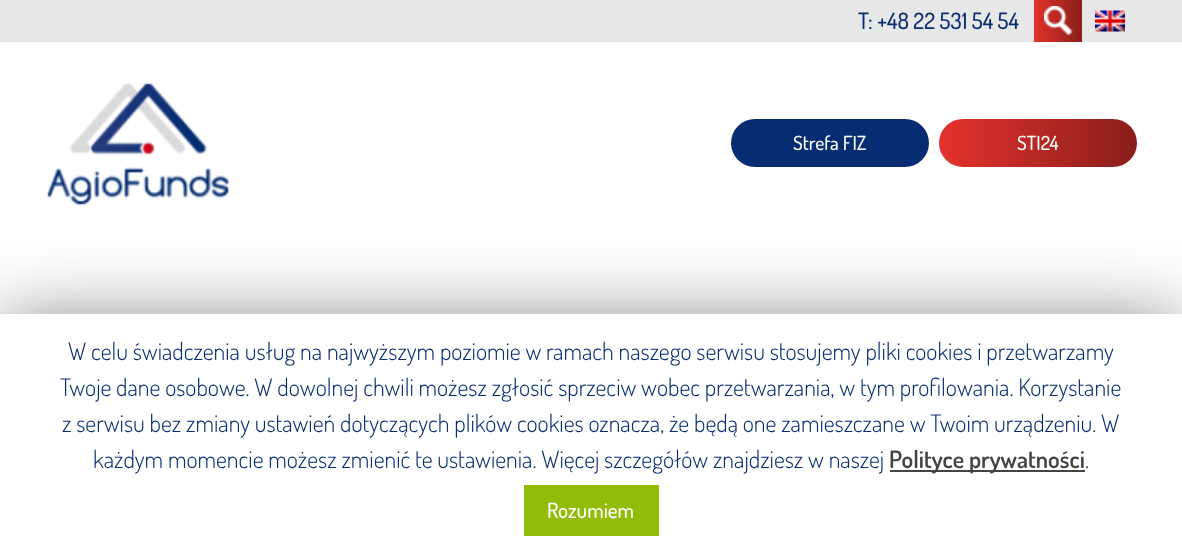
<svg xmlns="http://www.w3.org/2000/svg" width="1182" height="554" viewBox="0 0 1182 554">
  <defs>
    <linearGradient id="g1" gradientUnits="userSpaceOnUse" x1="1034" y1="21" x2="1082" y2="21"><stop offset="0" stop-color="rgb(229,50,44)"/><stop offset="1" stop-color="rgb(137,30,26)"/></linearGradient>
    <linearGradient id="g2" gradientUnits="userSpaceOnUse" x1="939" y1="143" x2="1137" y2="143"><stop offset="0" stop-color="rgb(229,50,44)"/><stop offset="1" stop-color="rgb(137,30,26)"/></linearGradient>
  </defs>
  <rect width="100%" height="100%" fill="rgb(255,255,255)"/>
  <rect x="0" y="0" width="1182" height="42" fill="rgb(231,231,231)"/>
  <text x="858" y="29" font-family="Dosis" font-size="22.5" font-weight="500" fill="rgb(6,45,114)">T: +48 22 531 54 54</text>
  <rect x="1034" y="0" width="48" height="42" fill="url(#g1)"/>
  <image x="1044" y="6" width="29" height="29" href="pic1.png"/>
  <image x="1095" y="10" width="30" height="22" href="pic2.png"/>
  <image x="46" y="82" width="184" height="124" href="pic3.png"/>
  <rect x="731" y="119" width="198" height="48" rx="24" fill="rgb(6,45,114)"/>
  <text x="793" y="150" font-family="Dosis" font-size="19.5" font-weight="500" fill="rgb(255,255,255)">Strefa FIZ</text>
  <rect x="939" y="119" width="198" height="48" rx="24" fill="url(#g2)"/>
  <text x="1017" y="150" font-family="Dosis" font-size="19.5" font-weight="500" fill="rgb(255,255,255)">STI24</text>
  <rect x="0" y="321" width="1182" height="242" fill="rgba(0,0,0,0.5)" filter="blur(37.5px)"/>
  <rect x="0" y="314" width="1182" height="240" fill="rgb(255,255,255)"/>
  <g font-family="Dosis" font-size="24" font-weight="300" fill="rgb(6,45,114)">
    <text x="68" y="360">W celu świadczenia usług na najwyższym poziomie w ramach naszego serwisu stosujemy pliki cookies i przetwarzamy</text>
    <text x="60" y="396">Twoje dane osobowe. W dowolnej chwili możesz zgłosić sprzeciw wobec przetwarzania, w tym profilowania. Korzystanie</text>
    <text x="62" y="432">z serwisu bez zmiany ustawień dotyczących plików cookies oznacza, że będą one zamieszczane w Twoim urządzeniu. W</text>
    <text x="93" y="468">każdym momencie możesz zmienić te ustawienia. Więcej szczegółów znajdziesz w naszej</text>
  </g>
  <rect x="890" y="470" width="195" height="2" fill="rgb(68,68,68)"/>
  <text x="889" y="468" font-family="Dosis" font-size="24" font-weight="600" fill="rgb(68,68,68)">Polityce prywatności</text>
  <text x="1085" y="468" font-family="Dosis" font-size="24" font-weight="300" fill="rgb(6,45,114)">.</text>
  <rect x="524" y="485" width="135" height="51" fill="rgb(145,189,9)"/>
  <text x="547" y="518" font-family="Dosis" font-size="21" font-weight="500" fill="rgb(255,255,255)">Rozumiem</text>
</svg>
